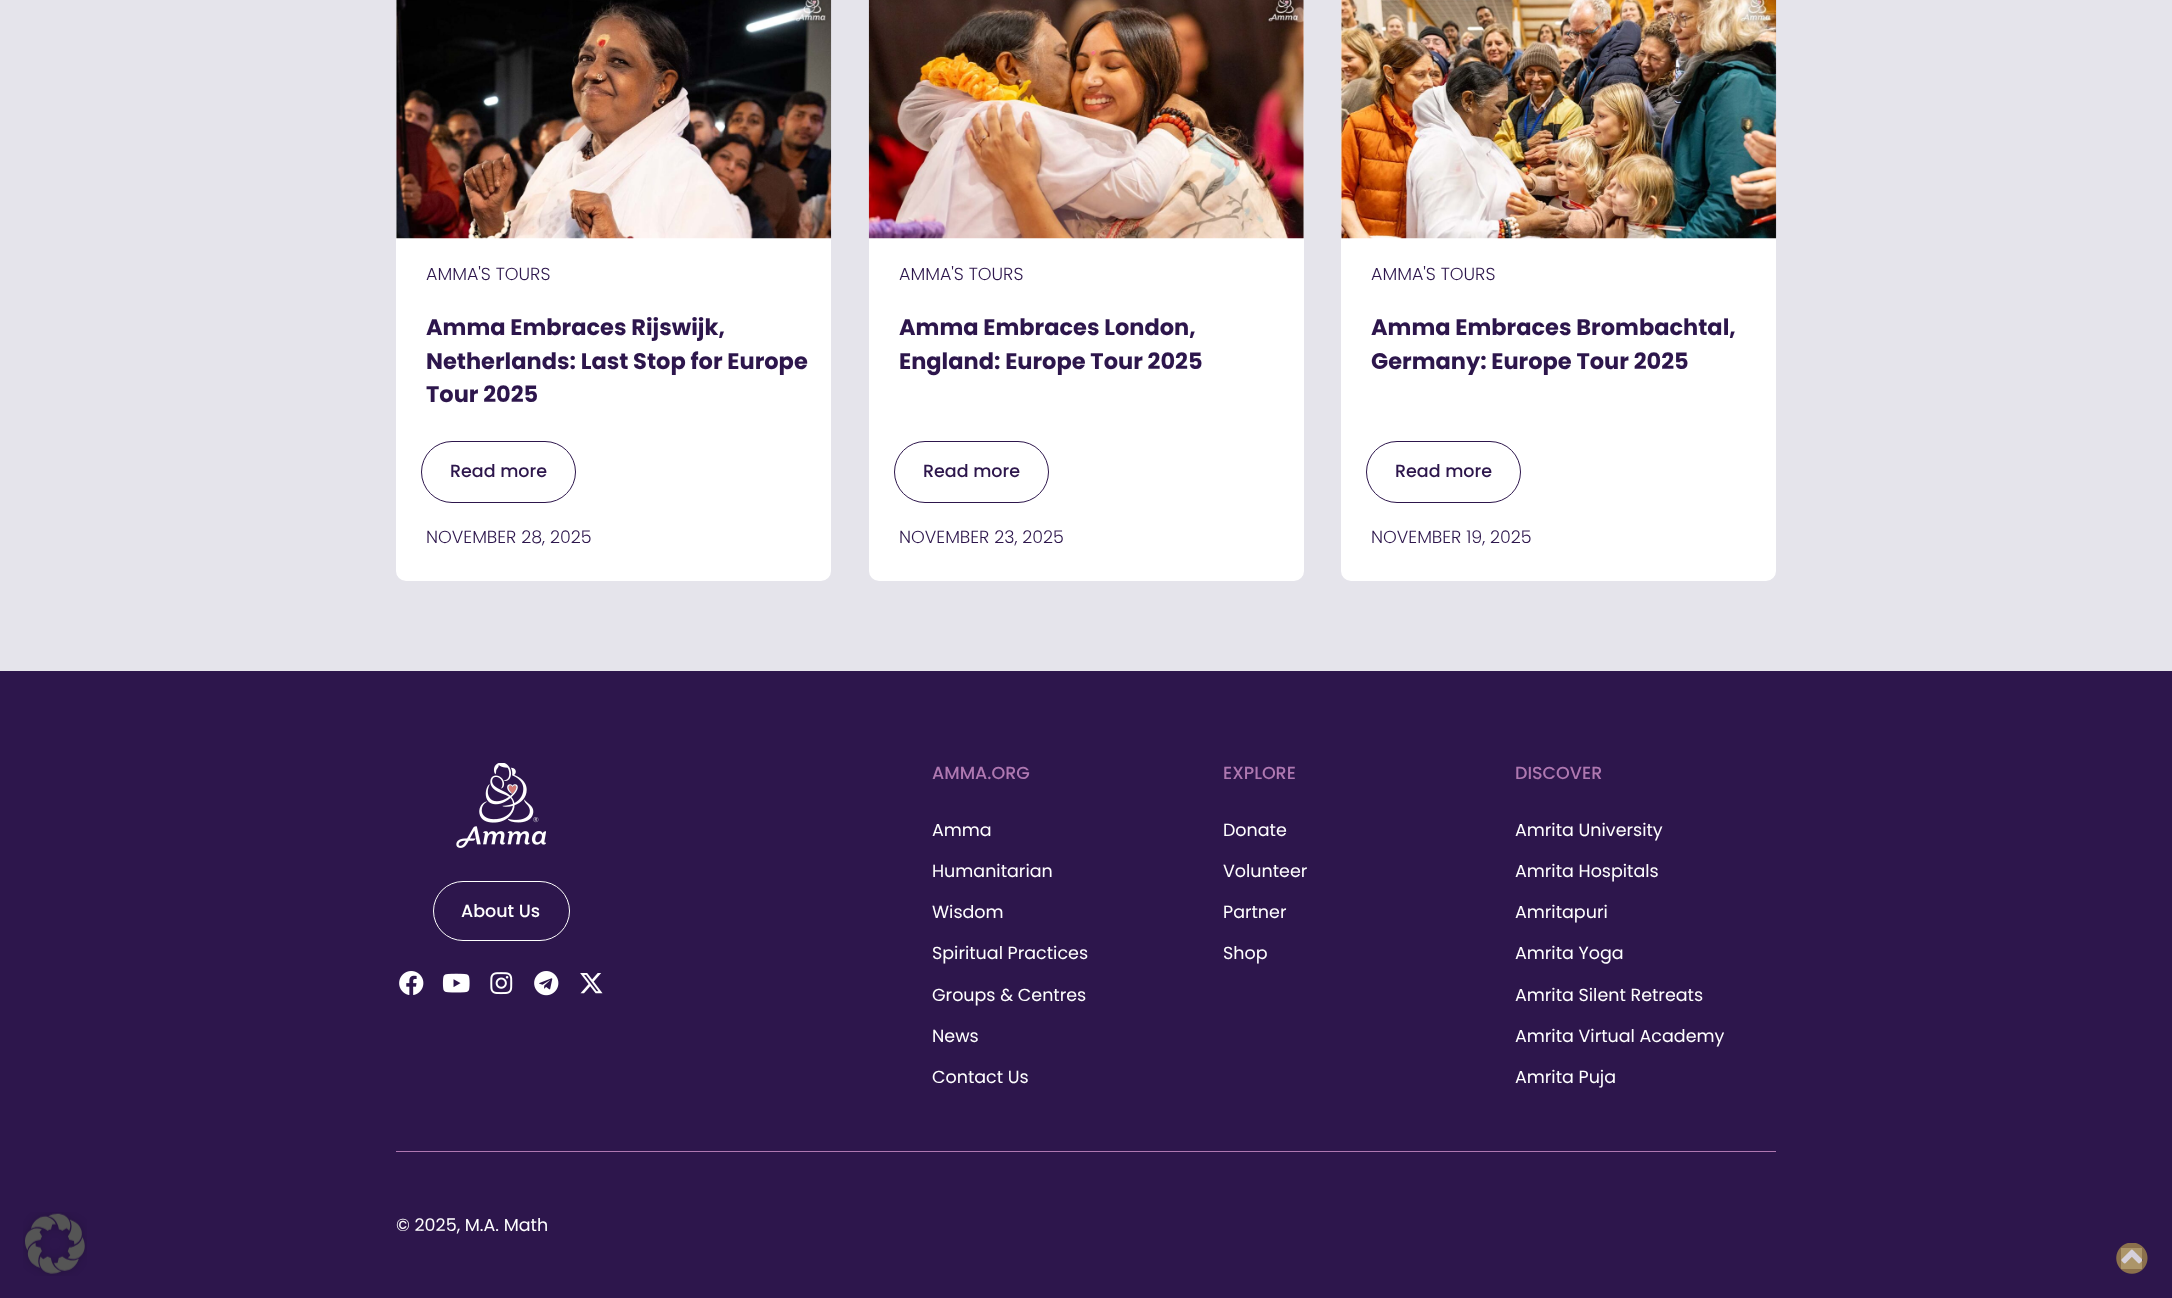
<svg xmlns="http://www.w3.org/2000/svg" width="2172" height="1298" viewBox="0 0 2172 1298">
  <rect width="100%" height="100%" fill="rgb(229,228,235)"/>
  <rect x="396" y="-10" width="435" height="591" rx="10" fill="rgb(255,255,255)"/>
  <image x="396" y="0" width="436" height="239" href="pic1.png"/>
  <text x="426" y="280" font-family="Poppins" font-size="17.5" font-weight="300" fill="rgb(45,22,76)">AMMA'S TOURS</text>
  <g font-family="Poppins" font-size="22.5" font-weight="bold" fill="rgb(45,22,76)">
    <text>
      <tspan x="426" y="335">Amma Embraces Rijswijk,</tspan>
      <tspan x="426" y="369">Netherlands: Last Stop for Europe</tspan>
      <tspan x="426" y="402">Tour 2025</tspan>
    </text>
  </g>
  <rect x="421.5" y="441.5" width="154" height="61" rx="30.5" fill="none" stroke="rgb(45,22,76)"/>
  <text x="450" y="477" font-family="Poppins" font-size="17.5" font-weight="500" fill="rgb(45,22,76)">Read more</text>
  <text x="426" y="543" font-family="Poppins" font-size="17.5" font-weight="300" fill="rgb(45,22,76)">NOVEMBER 28, 2025</text>
  <rect x="869" y="-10" width="435" height="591" rx="10" fill="rgb(255,255,255)"/>
  <image x="868" y="0" width="436" height="239" href="pic2.png"/>
  <text x="899" y="280" font-family="Poppins" font-size="17.5" font-weight="300" fill="rgb(45,22,76)">AMMA'S TOURS</text>
  <g font-family="Poppins" font-size="22.5" font-weight="bold" fill="rgb(45,22,76)">
    <text>
      <tspan x="899" y="335">Amma Embraces London,</tspan>
      <tspan x="899" y="369">England: Europe Tour 2025</tspan>
    </text>
  </g>
  <rect x="894.5" y="441.5" width="154" height="61" rx="30.5" fill="none" stroke="rgb(45,22,76)"/>
  <text x="923" y="477" font-family="Poppins" font-size="17.5" font-weight="500" fill="rgb(45,22,76)">Read more</text>
  <text x="899" y="543" font-family="Poppins" font-size="17.5" font-weight="300" fill="rgb(45,22,76)">NOVEMBER 23, 2025</text>
  <rect x="1341" y="-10" width="435" height="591" rx="10" fill="rgb(255,255,255)"/>
  <image x="1341" y="0" width="436" height="239" href="pic3.png"/>
  <text x="1371" y="280" font-family="Poppins" font-size="17.5" font-weight="300" fill="rgb(45,22,76)">AMMA'S TOURS</text>
  <g font-family="Poppins" font-size="22.5" font-weight="bold" fill="rgb(45,22,76)">
    <text>
      <tspan x="1371" y="335">Amma Embraces Brombachtal,</tspan>
      <tspan x="1371" y="369">Germany: Europe Tour 2025</tspan>
    </text>
  </g>
  <rect x="1366.5" y="441.5" width="154" height="61" rx="30.5" fill="none" stroke="rgb(45,22,76)"/>
  <text x="1395" y="477" font-family="Poppins" font-size="17.5" font-weight="500" fill="rgb(45,22,76)">Read more</text>
  <text x="1371" y="543" font-family="Poppins" font-size="17.5" font-weight="300" fill="rgb(45,22,76)">NOVEMBER 19, 2025</text>
  <rect x="0" y="671" width="2172" height="627" fill="rgb(45,22,76)"/>
  <image x="456" y="763" width="90" height="85" href="pic4.png"/>
  <rect x="433.5" y="881.5" width="136" height="59" rx="29.5" fill="none" stroke="rgb(255,255,255)"/>
  <text x="461" y="917" font-family="Poppins" font-size="17.5" font-weight="500" fill="rgb(255,255,255)">About Us</text>
  <image x="399" y="971" width="25" height="24" href="pic5.png"/>
  <image x="442" y="973" width="28" height="20" href="pic6.png"/>
  <image x="490" y="972" width="23" height="23" href="pic7.png"/>
  <image x="534" y="971" width="25" height="25" href="pic8.png"/>
  <image x="580" y="973" width="23" height="21" href="pic9.png"/>
  <text x="932" y="779" font-family="Poppins" font-size="17.5" font-weight="500" fill="rgb(175,120,177)">AMMA.ORG</text>
  <g font-family="Poppins" font-size="17.5" fill="rgb(255,255,255)">
    <text x="932" y="836">Amma</text>
    <text x="932" y="877">Humanitarian</text>
    <text x="932" y="918">Wisdom</text>
    <text x="932" y="959">Spiritual Practices</text>
    <text x="932" y="1001">Groups &amp; Centres</text>
    <text x="932" y="1042">News</text>
    <text x="932" y="1083">Contact Us</text>
  </g>
  <text x="1223" y="779" font-family="Poppins" font-size="17.5" font-weight="500" fill="rgb(175,120,177)">EXPLORE</text>
  <g font-family="Poppins" font-size="17.5" fill="rgb(255,255,255)">
    <text x="1223" y="836">Donate</text>
    <text x="1223" y="877">Volunteer</text>
    <text x="1223" y="918">Partner</text>
    <text x="1223" y="959">Shop</text>
  </g>
  <text x="1515" y="779" font-family="Poppins" font-size="17.5" font-weight="500" fill="rgb(175,120,177)">DISCOVER</text>
  <g font-family="Poppins" font-size="17.5" fill="rgb(255,255,255)">
    <text x="1515" y="836">Amrita University</text>
    <text x="1515" y="877">Amrita Hospitals</text>
    <text x="1515" y="918">Amritapuri</text>
    <text x="1515" y="959">Amrita Yoga</text>
    <text x="1515" y="1001">Amrita Silent Retreats</text>
    <text x="1515" y="1042">Amrita Virtual Academy</text>
    <text x="1515" y="1083">Amrita Puja</text>
  </g>
  <rect x="396" y="1151" width="1380" height="1" fill="rgb(175,120,177)"/>
  <text x="396" y="1231" font-family="Poppins" font-size="17.5" fill="rgb(255,255,255)">© 2025, M.A. Math</text>
  <image x="23" y="1212" width="64" height="64" href="pic10.png"/>
  <image x="2116" y="1243" width="32" height="31" href="pic11.png"/>
</svg>
